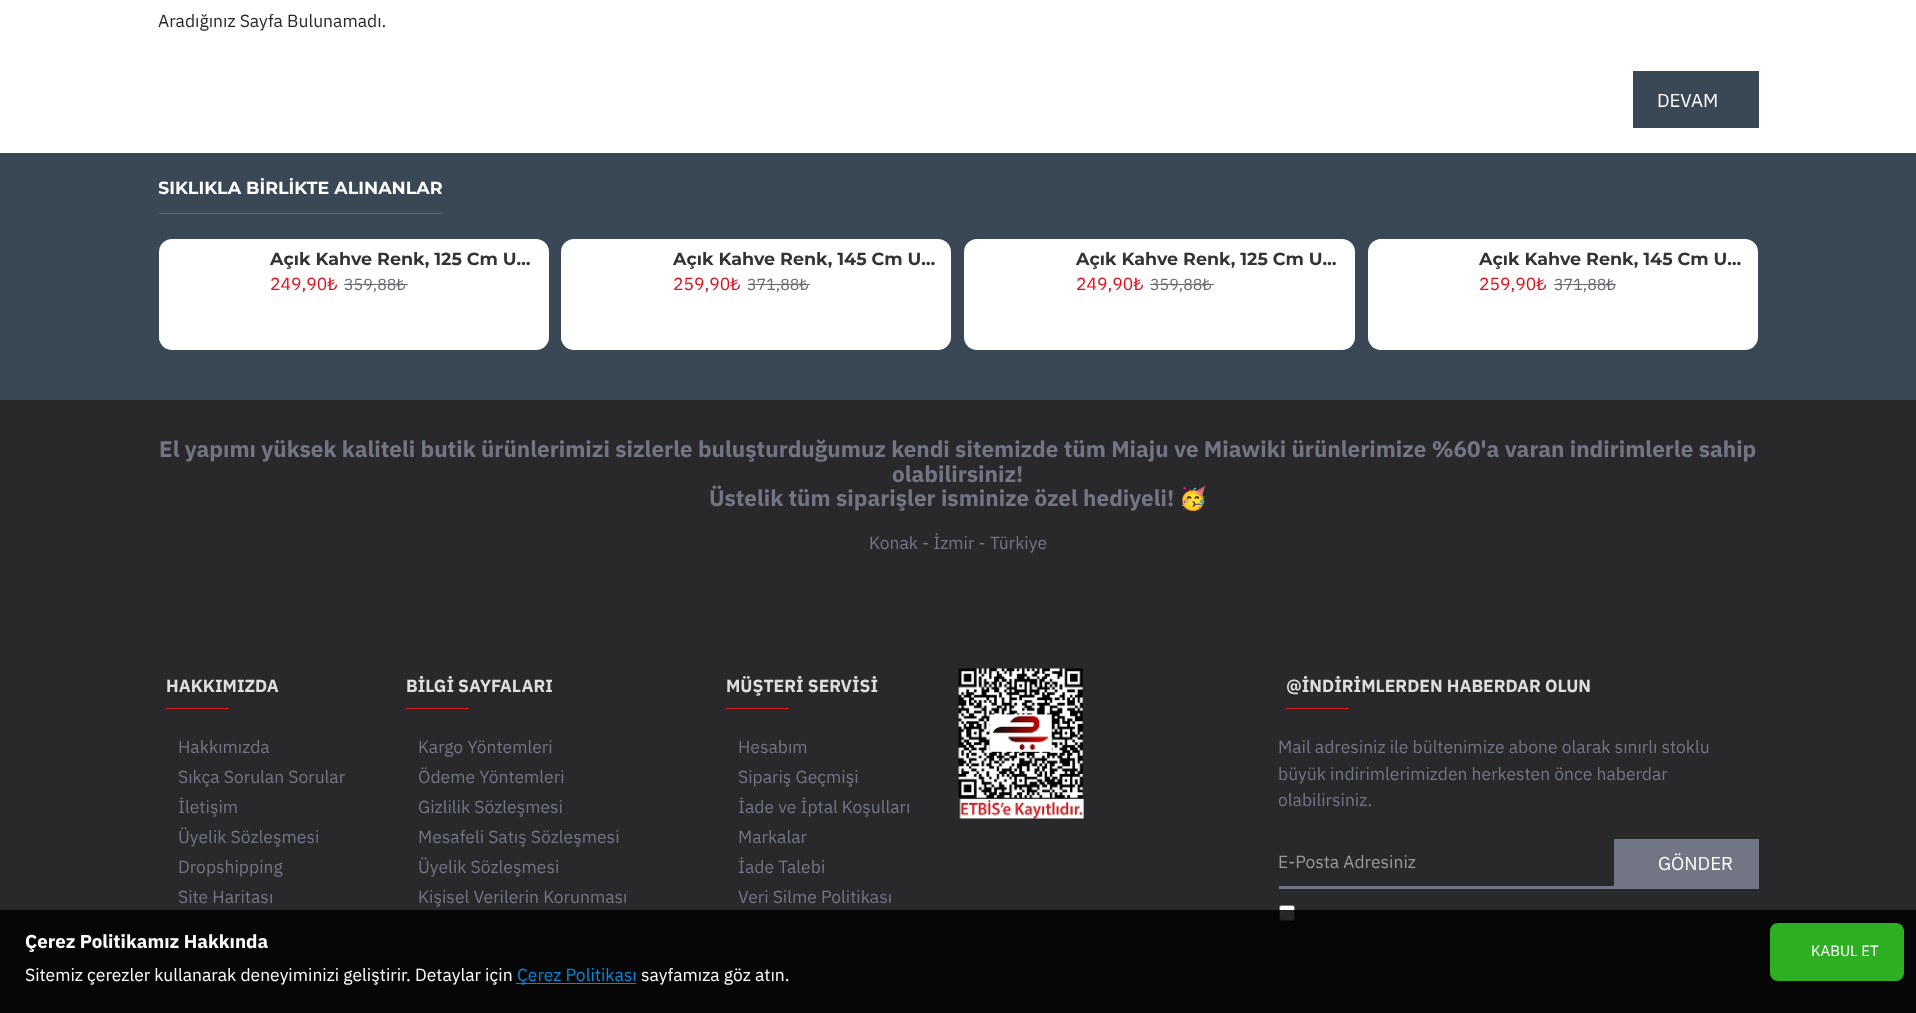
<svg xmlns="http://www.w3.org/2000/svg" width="1916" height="1013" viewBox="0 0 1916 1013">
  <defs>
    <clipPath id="clip1"><rect x="159" y="178" width="1600" height="36"/></clipPath>
  </defs>
  <rect width="100%" height="100%" fill="rgb(255,255,255)"/>
  <text x="158" y="27" font-family="IBM Plex Sans" font-size="17.5" fill="rgb(41,41,43)">Aradığınız Sayfa Bulunamadı.</text>
  <rect x="1633" y="71" width="126" height="57" fill="rgb(58,71,84)"/>
  <text x="1657" y="107" font-family="IBM Plex Sans" font-size="18.75" fill="rgb(255,255,255)">DEVAM</text>
  <rect x="0" y="400" width="1916" height="613" fill="rgb(41,41,43)"/>
  <rect x="0" y="153" width="1916" height="247" fill="rgb(58,71,84)"/>
  <rect x="159" y="213" width="284" height="1" fill="rgb(39,123,140)"/>
  <g clip-path="url(#clip1)">
    <text x="158" y="194" font-family="Montserrat" font-size="17.5" font-weight="100" fill="rgb(255,255,255)">SIKLIKLA BİRLİKTE ALINANLAR</text>
  </g>
  <rect x="159" y="239" width="390" height="111" rx="13" fill="rgb(255,255,255)"/>
  <text x="270" y="265" font-family="Montserrat" font-size="17.5" font-weight="100" fill="rgb(52,52,56)">Açık Kahve Renk, 125 Cm U…</text>
  <text x="270" y="290" font-family="IBM Plex Sans" font-size="17.5" fill="rgb(221,14,28)">249,90₺</text>
  <text x="344" y="290" font-family="IBM Plex Sans" font-size="16" fill="rgb(105,105,115)">359,88₺</text>
  <rect x="344" y="284" width="64" height="1" fill="rgb(105,105,115)"/>
  <rect x="561" y="239" width="390" height="111" rx="13" fill="rgb(255,255,255)"/>
  <text x="673" y="265" font-family="Montserrat" font-size="17.5" font-weight="100" fill="rgb(52,52,56)">Açık Kahve Renk, 145 Cm U…</text>
  <text x="673" y="290" font-family="IBM Plex Sans" font-size="17.5" fill="rgb(221,14,28)">259,90₺</text>
  <text x="747" y="290" font-family="IBM Plex Sans" font-size="16" fill="rgb(105,105,115)">371,88₺</text>
  <rect x="748" y="284" width="62" height="1" fill="rgb(105,105,115)"/>
  <rect x="964" y="239" width="391" height="111" rx="13" fill="rgb(255,255,255)"/>
  <text x="1076" y="265" font-family="Montserrat" font-size="17.5" font-weight="100" fill="rgb(52,52,56)">Açık Kahve Renk, 125 Cm U…</text>
  <text x="1076" y="290" font-family="IBM Plex Sans" font-size="17.5" fill="rgb(221,14,28)">249,90₺</text>
  <text x="1150" y="290" font-family="IBM Plex Sans" font-size="16" fill="rgb(105,105,115)">359,88₺</text>
  <rect x="1150" y="284" width="64" height="1" fill="rgb(105,105,115)"/>
  <rect x="1368" y="239" width="390" height="111" rx="13" fill="rgb(255,255,255)"/>
  <text x="1479" y="265" font-family="Montserrat" font-size="17.5" font-weight="100" fill="rgb(52,52,56)">Açık Kahve Renk, 145 Cm U…</text>
  <text x="1479" y="290" font-family="IBM Plex Sans" font-size="17.5" fill="rgb(221,14,28)">259,90₺</text>
  <text x="1554" y="290" font-family="IBM Plex Sans" font-size="16" fill="rgb(105,105,115)">371,88₺</text>
  <rect x="1554" y="284" width="62" height="1" fill="rgb(105,105,115)"/>
  <g font-family="IBM Plex Sans" font-size="22.5" font-weight="bold" fill="rgb(114,118,132)">
    <text x="159" y="457">El yapımı yüksek kaliteli butik ürünlerimizi sizlerle buluşturduğumuz kendi sitemizde tüm Miaju ve Miawiki ürünlerimize %60'a varan indirimlerle sahip</text>
    <text x="892" y="482">olabilirsiniz!</text>
    <text x="709" y="506">Üstelik tüm siparişler isminize özel hediyeli!</text>
  </g>
  <text x="1179" y="506" font-family="Noto Color Emoji" font-size="22.5" font-weight="bold" fill="rgb(114,118,132)">🥳</text>
  <text x="869" y="549" font-family="IBM Plex Sans" font-size="17.5" fill="rgb(114,118,132)">Konak - İzmir - Türkiye</text>
  <text x="166" y="692" font-family="IBM Plex Sans" font-size="17.5" font-weight="bold" fill="rgb(221,221,221)">HAKKIMIZDA</text>
  <rect x="166" y="708" width="63" height="1" fill="rgb(208,30,36)"/>
  <g font-family="IBM Plex Sans" font-size="17.5" fill="rgb(114,118,132)">
    <text>
      <tspan x="178" y="753">Hakkımızda</tspan>
      <tspan x="178" y="783">Sıkça Sorulan Sorular</tspan>
      <tspan x="178" y="813">İletişim</tspan>
      <tspan x="178" y="843">Üyelik Sözleşmesi</tspan>
      <tspan x="178" y="873">Dropshipping</tspan>
      <tspan x="178" y="903">Site Haritası</tspan>
    </text>
  </g>
  <text x="406" y="692" font-family="IBM Plex Sans" font-size="17.5" font-weight="bold" fill="rgb(221,221,221)">BİLGİ SAYFALARI</text>
  <rect x="406" y="708" width="63" height="1" fill="rgb(208,30,36)"/>
  <g font-family="IBM Plex Sans" font-size="17.5" fill="rgb(114,118,132)">
    <text>
      <tspan x="418" y="753">Kargo Yöntemleri</tspan>
      <tspan x="418" y="783">Ödeme Yöntemleri</tspan>
      <tspan x="418" y="813">Gizlilik Sözleşmesi</tspan>
      <tspan x="418" y="843">Mesafeli Satış Sözleşmesi</tspan>
      <tspan x="418" y="873">Üyelik Sözleşmesi</tspan>
      <tspan x="418" y="903">Kişisel Verilerin Korunması</tspan>
    </text>
  </g>
  <text x="726" y="692" font-family="IBM Plex Sans" font-size="17.5" font-weight="bold" fill="rgb(221,221,221)">MÜŞTERİ SERVİSİ</text>
  <rect x="726" y="708" width="63" height="1" fill="rgb(208,30,36)"/>
  <g font-family="IBM Plex Sans" font-size="17.5" fill="rgb(114,118,132)">
    <text>
      <tspan x="738" y="753">Hesabım</tspan>
      <tspan x="738" y="783">Sipariş Geçmişi</tspan>
      <tspan x="738" y="813">İade ve İptal Koşulları</tspan>
      <tspan x="738" y="843">Markalar</tspan>
      <tspan x="738" y="873">İade Talebi</tspan>
      <tspan x="738" y="903">Veri Silme Politikası</tspan>
    </text>
  </g>
  <image x="958" y="668" width="126" height="151" href="pic1.png"/>
  <text x="1286" y="692" font-family="IBM Plex Sans" font-size="17.5" font-weight="bold" fill="rgb(221,221,221)">@İNDİRİMLERDEN HABERDAR OLUN</text>
  <rect x="1286" y="708" width="63" height="1" fill="rgb(208,30,36)"/>
  <g font-family="IBM Plex Sans" font-size="17.5" fill="rgb(114,118,132)">
    <text>
      <tspan x="1278" y="753">Mail adresiniz ile bültenimize abone olarak sınırlı stoklu</tspan>
      <tspan x="1278" y="780">büyük indirimlerimizden herkesten önce haberdar</tspan>
      <tspan x="1278" y="806">olabilirsiniz.</tspan>
    </text>
  </g>
  <rect x="1279" y="886" width="335" height="3" fill="rgb(114,118,132)"/>
  <text x="1278" y="868" font-family="IBM Plex Sans" font-size="17.5" fill="rgb(153,153,153)">E-Posta Adresiniz</text>
  <rect x="1614" y="839" width="145" height="50" fill="rgb(114,118,132)"/>
  <text x="1658" y="870" font-family="IBM Plex Sans" font-size="18.75" fill="rgb(255,255,255)">GÖNDER</text>
  <rect x="1279.5" y="905.5" width="15" height="15" rx="2" fill="rgb(255,255,255)" stroke="rgb(118,118,118)"/>
  <rect x="0" y="910" width="1916" height="103" fill="rgba(0,0,0,0.85)"/>
  <text x="25" y="948" font-family="IBM Plex Sans" font-size="18.75" font-weight="bold" fill="rgb(255,255,255)">Çerez Politikamız Hakkında</text>
  <text x="25" y="981" font-family="IBM Plex Sans" font-size="17.5" fill="rgb(255,255,255)">Sitemiz çerezler kullanarak deneyiminizi geliştirir. Detaylar için</text>
  <rect x="516" y="983" width="120" height="1" fill="rgb(0,138,221)"/>
  <text x="517" y="981" font-family="IBM Plex Sans" font-size="17.5" fill="rgb(0,138,221)">Çerez Politikası</text>
  <text x="641" y="981" font-family="IBM Plex Sans" font-size="17.5" fill="rgb(255,255,255)">sayfamıza göz atın.</text>
  <rect x="1770" y="923" width="134" height="58" rx="8" fill="rgb(46,175,35)"/>
  <text x="1811" y="956" font-family="IBM Plex Sans" font-size="15" fill="rgb(255,255,255)">KABUL ET</text>
</svg>
